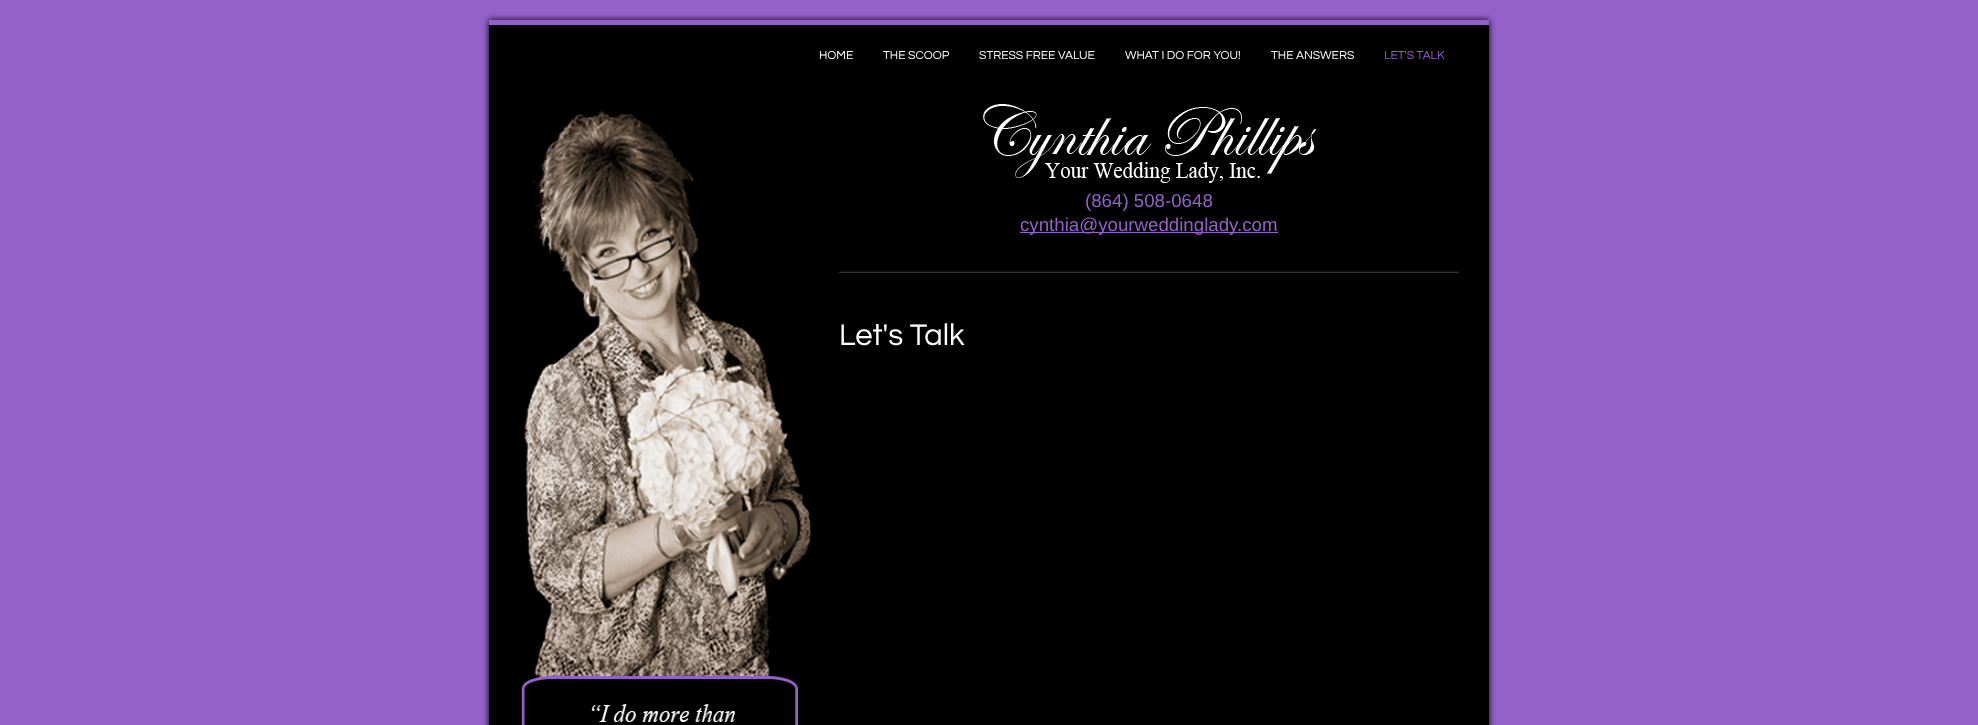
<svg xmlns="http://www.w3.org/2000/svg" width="1978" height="725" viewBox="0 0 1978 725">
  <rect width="100%" height="100%" fill="rgb(148,97,201)"/>
  <rect x="489" y="20" width="1000" height="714" fill="rgb(0,0,0)" filter="blur(3px)"/>
  <rect x="489" y="25" width="1000" height="700" fill="rgb(0,0,0)"/>
  <rect x="489" y="20" width="1000" height="5" fill="rgb(148,97,201)"/>
  <g font-family="Questrial" font-size="12" fill="rgb(255,255,255)">
    <text x="819" y="59">HOME</text>
    <text x="883" y="59">THE SCOOP</text>
    <text x="979" y="59">STRESS FREE VALUE</text>
    <text x="1125" y="59">WHAT I DO FOR YOU!</text>
    <text x="1271" y="59">THE ANSWERS</text>
  </g>
  <text x="1384" y="59" font-family="Questrial" font-size="12" fill="rgb(148,97,201)">LET'S TALK</text>
  <image x="521" y="109" width="291" height="616" href="pic1.png"/>
  <image x="839" y="271" width="620" height="2" href="pic2.png"/>
  <image x="983" y="104" width="333" height="79" href="pic3.png"/>
  <text x="1085" y="207" font-family="Liberation Sans" font-size="18.7" fill="rgb(148,97,201)">(864) 508-0648</text>
  <rect x="1020" y="232" width="258" height="1" fill="rgb(148,97,201)"/>
  <text x="1020" y="231" font-family="Liberation Sans" font-size="18.7" fill="rgb(148,97,201)">cynthia@yourweddinglady.com</text>
  <text x="839" y="345" font-family="Questrial" font-size="31" fill="rgb(255,255,255)">Let's Talk</text>
</svg>
